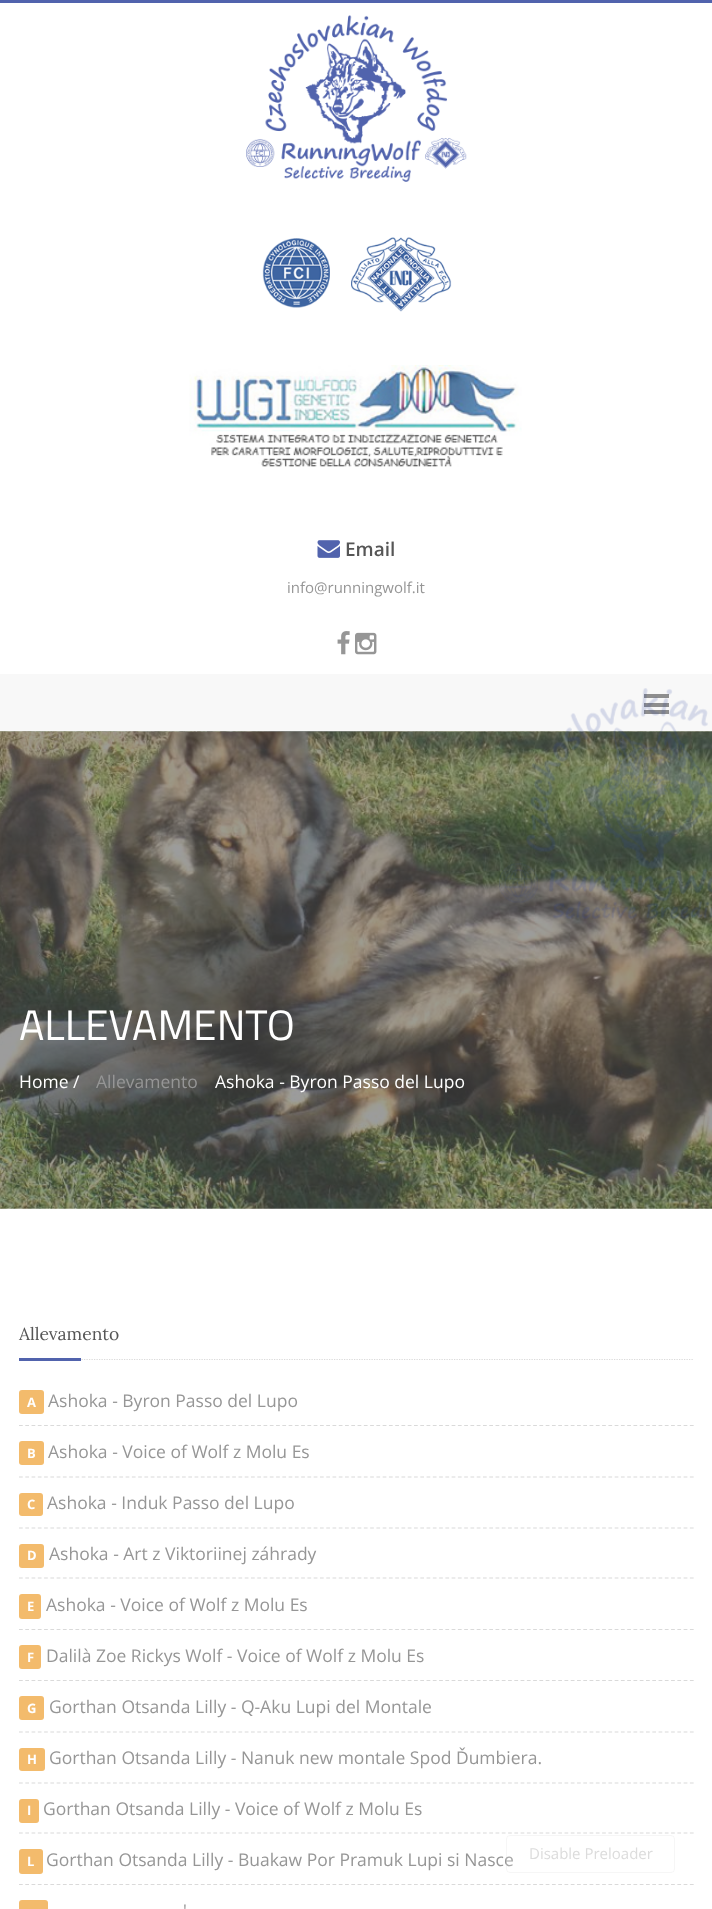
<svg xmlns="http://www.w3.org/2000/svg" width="712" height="1909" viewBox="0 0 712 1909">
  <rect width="100%" height="100%" fill="rgb(255,255,255)"/>
  <rect x="0" y="0" width="712" height="3" fill="rgb(81,99,173)"/>
  <image x="246" y="15" width="221" height="167" href="pic1.png"/>
  <image x="262" y="237" width="190" height="75" href="pic2.png"/>
  <image x="189" y="365" width="333" height="102" href="pic3.png"/>
  <image x="317" y="540" width="23" height="18" href="pic4.png"/>
  <text x="345" y="556" font-family="Open Sans" font-size="19" font-weight="600" fill="rgb(86,86,86)">Email</text>
  <text x="287" y="593" font-family="Open Sans" font-size="15" fill="rgb(150,150,150)">info@runningwolf.it</text>
  <image x="337" y="631" width="13" height="24" href="pic5.png"/>
  <image x="355" y="632" width="22" height="23" href="pic6.png"/>
  <rect x="0" y="674" width="712" height="57" fill="rgb(248,248,248)"/>
  <rect x="644" y="694" width="25" height="4" fill="rgb(142,142,142)"/>
  <rect x="644" y="703" width="25" height="4" fill="rgb(142,142,142)"/>
  <rect x="644" y="710" width="25" height="4" fill="rgb(142,142,142)"/>
  <image x="0" y="731" width="712" height="478" href="pic7.png"/>
  <text x="19" y="1040" font-family="Titillium Web" font-size="42.5" fill="rgb(255,255,255)">ALLEVAMENTO</text>
  <text x="19" y="1088" font-family="Open Sans" font-size="17.5" fill="rgb(255,255,255)">Home /</text>
  <text x="96" y="1088" font-family="Open Sans" font-size="17.5" fill="rgb(150,150,150)">Allevamento</text>
  <text x="215" y="1088" font-family="Open Sans" font-size="17.5" fill="rgb(255,255,255)">Ashoka - Byron Passo del Lupo</text>
  <path d="M19 1359.5H694" fill="none" stroke="rgb(218,218,218)" stroke-width="1.2" stroke-dasharray="1.25 1.25"/>
  <text x="19" y="1340" font-family="Lora" font-size="17.5" fill="rgb(86,86,86)">Allevamento</text>
  <rect x="19" y="1358" width="62" height="3" fill="rgb(81,99,173)"/>
  <path d="M19 1425.5H694" fill="none" stroke="rgb(218,218,218)" stroke-width="1.2" stroke-dasharray="3.75 2.52"/>
  <rect x="19" y="1390" width="25" height="24" rx="3" fill="rgb(243,187,108)"/>
  <text x="27" y="1407" font-family="Open Sans" font-size="13" font-weight="bold" fill="rgb(255,255,255)">A</text>
  <text x="48" y="1407" font-family="Open Sans" font-size="17.5" fill="rgb(150,150,150)">Ashoka - Byron Passo del Lupo</text>
  <path d="M19 1477H694" fill="none" stroke="rgb(218,218,218)" stroke-width="1.2" stroke-dasharray="3.75 2.52"/>
  <rect x="19" y="1441" width="25" height="24" rx="3" fill="rgb(243,187,108)"/>
  <text x="27" y="1458" font-family="Open Sans" font-size="13" font-weight="bold" fill="rgb(255,255,255)">B</text>
  <text x="48" y="1458" font-family="Open Sans" font-size="17.5" fill="rgb(150,150,150)">Ashoka - Voice of Wolf z Molu Es</text>
  <path d="M19 1528H694" fill="none" stroke="rgb(218,218,218)" stroke-width="1.2" stroke-dasharray="3.75 2.52"/>
  <rect x="19" y="1493" width="24" height="23" rx="3" fill="rgb(243,187,108)"/>
  <text x="27" y="1509" font-family="Open Sans" font-size="13" font-weight="bold" fill="rgb(255,255,255)">C</text>
  <text x="47" y="1509" font-family="Open Sans" font-size="17.5" fill="rgb(150,150,150)">Ashoka - Induk Passo del Lupo</text>
  <path d="M19 1578H694" fill="none" stroke="rgb(218,218,218)" stroke-width="1.2" stroke-dasharray="3.75 2.52"/>
  <rect x="19" y="1544" width="25" height="24" rx="3" fill="rgb(243,187,108)"/>
  <text x="27" y="1560" font-family="Open Sans" font-size="13" font-weight="bold" fill="rgb(255,255,255)">D</text>
  <text x="49" y="1560" font-family="Open Sans" font-size="17.5" fill="rgb(150,150,150)">Ashoka - Art z Viktoriinej záhrady</text>
  <path d="M19 1629.5H694" fill="none" stroke="rgb(218,218,218)" stroke-width="1.2" stroke-dasharray="3.75 2.52"/>
  <rect x="19" y="1594" width="22" height="25" rx="3" fill="rgb(243,187,108)"/>
  <text x="27" y="1611" font-family="Open Sans" font-size="13" font-weight="bold" fill="rgb(255,255,255)">E</text>
  <text x="46" y="1611" font-family="Open Sans" font-size="17.5" fill="rgb(150,150,150)">Ashoka - Voice of Wolf z Molu Es</text>
  <path d="M19 1680.5H694" fill="none" stroke="rgb(218,218,218)" stroke-width="1.2" stroke-dasharray="3.75 2.52"/>
  <rect x="19" y="1645" width="22" height="24" rx="3" fill="rgb(243,187,108)"/>
  <text x="27" y="1662" font-family="Open Sans" font-size="13" font-weight="bold" fill="rgb(255,255,255)">F</text>
  <text x="46" y="1662" font-family="Open Sans" font-size="17.5" fill="rgb(150,150,150)">Dalilà Zoe Rickys Wolf - Voice of Wolf z Molu Es</text>
  <path d="M19 1732H694" fill="none" stroke="rgb(218,218,218)" stroke-width="1.2" stroke-dasharray="3.75 2.52"/>
  <rect x="19" y="1696" width="25" height="24" rx="3" fill="rgb(243,187,108)"/>
  <text x="27" y="1713" font-family="Open Sans" font-size="13" font-weight="bold" fill="rgb(255,255,255)">G</text>
  <text x="49" y="1713" font-family="Open Sans" font-size="17.5" fill="rgb(150,150,150)">Gorthan Otsanda Lilly - Q-Aku Lupi del Montale</text>
  <path d="M19 1783H694" fill="none" stroke="rgb(218,218,218)" stroke-width="1.2" stroke-dasharray="3.75 2.52"/>
  <rect x="19" y="1748" width="26" height="23" rx="3" fill="rgb(243,187,108)"/>
  <text x="27" y="1764" font-family="Open Sans" font-size="13" font-weight="bold" fill="rgb(255,255,255)">H</text>
  <text x="49" y="1764" font-family="Open Sans" font-size="17.5" fill="rgb(150,150,150)">Gorthan Otsanda Lilly - Nanuk new montale Spod Ďumbiera.</text>
  <path d="M19 1833H694" fill="none" stroke="rgb(218,218,218)" stroke-width="1.2" stroke-dasharray="3.75 2.52"/>
  <rect x="19" y="1799" width="20" height="24" rx="3" fill="rgb(243,187,108)"/>
  <text x="27" y="1815" font-family="Open Sans" font-size="13" font-weight="bold" fill="rgb(255,255,255)">I</text>
  <text x="43" y="1815" font-family="Open Sans" font-size="17.5" fill="rgb(150,150,150)">Gorthan Otsanda Lilly - Voice of Wolf z Molu Es</text>
  <path d="M19 1884.5H694" fill="none" stroke="rgb(218,218,218)" stroke-width="1.2" stroke-dasharray="3.75 2.52"/>
  <rect x="19" y="1849" width="24" height="25" rx="3" fill="rgb(243,187,108)"/>
  <text x="27" y="1866" font-family="Open Sans" font-size="13" font-weight="bold" fill="rgb(255,255,255)">L</text>
  <g font-family="Open Sans" font-size="17.5" fill="rgb(150,150,150)">
    <text x="46" y="1866">Gorthan Otsanda Lilly - Buakaw Por Pramuk Lupi si Nasce</text>
    <text x="183" y="1917">'</text>
  </g>
  <rect x="19" y="1900" width="29" height="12" rx="3" fill="rgb(243,187,108)"/>
  <image x="499" y="688" width="213" height="231" href="pic8.png"/>
  <rect x="506" y="1835" width="169" height="38" rx="4" fill="rgba(255,255,255,0.17)"/>
  <rect x="506.5" y="1835.5" width="168" height="37" rx="3.5" fill="none" stroke="rgba(204,204,204,0.17)"/>
  <text x="529" y="1859" font-family="Open Sans" font-size="15" fill="rgb(220,220,220)">Disable Preloader</text>
</svg>
